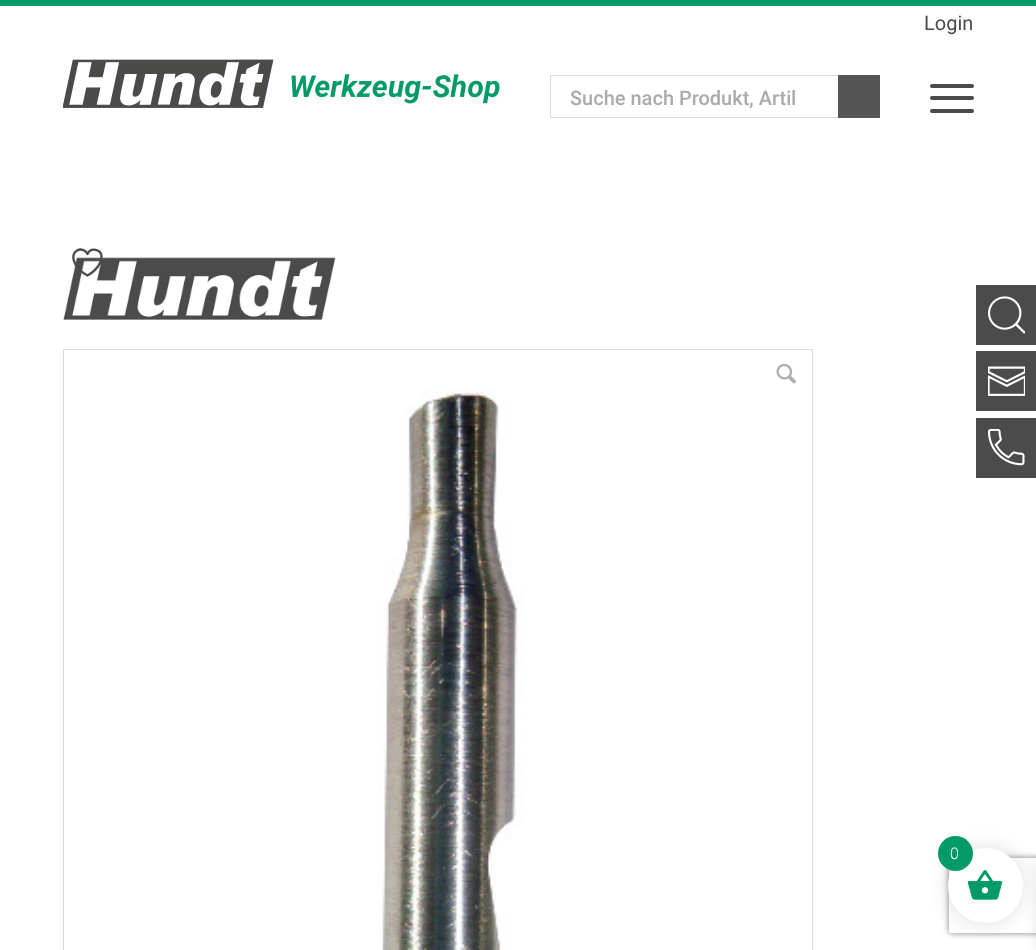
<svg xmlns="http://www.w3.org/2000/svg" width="1036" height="950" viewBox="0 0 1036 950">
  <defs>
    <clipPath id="clip1"><rect x="570" y="86" width="225" height="24"/></clipPath>
    <clipPath id="clip2"><path d="M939 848H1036V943H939ZM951.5 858H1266.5C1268 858 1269 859 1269 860.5V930.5C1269 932 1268 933 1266.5 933H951.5C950 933 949 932 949 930.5V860.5C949 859 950 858 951.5 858Z" clip-rule="evenodd"/></clipPath>
  </defs>
  <rect width="100%" height="100%" fill="rgb(255,255,255)"/>
  <rect x="0" y="0" width="1036" height="6" fill="rgb(2,155,103)"/>
  <image x="63" y="59" width="437" height="49" href="pic1.png"/>
  <text x="924" y="30" font-family="Roboto" font-size="20" fill="rgb(75,75,75)">Login</text>
  <rect x="550.5" y="75.5" width="329" height="42" fill="none" stroke="rgb(220,220,220)"/>
  <g clip-path="url(#clip1)">
    <text x="570" y="105" font-family="Roboto" font-size="20" font-weight="500" fill="rgb(171,171,171)">Suche nach Produkt, Artik</text>
  </g>
  <rect x="838" y="75" width="42" height="43" fill="rgb(85,85,85)"/>
  <rect x="930" y="96" width="44" height="4" rx="2" fill="rgb(75,75,75)"/>
  <rect x="930" y="84" width="44" height="4" rx="2" fill="rgb(75,75,75)"/>
  <rect x="930" y="109" width="44" height="4" rx="2" fill="rgb(75,75,75)"/>
  <image x="63" y="257" width="273" height="63" href="pic2.png"/>
  <path d="M101.5 256.5C101.5 249 90.5 247 87.5 254C83.5 245 67.5 250 75.5 264.5C78 269 83 273 87.5 275.5C87.5 275.5 101.5 268 101.5 256.5Z" fill="none" stroke="rgb(75,75,75)" stroke-width="2.3" stroke-linecap="round" stroke-linejoin="round"/>
  <rect x="63.5" y="349.5" width="749" height="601" fill="none" stroke="rgb(219,219,219)"/>
  <image x="776" y="363" width="21" height="21" href="pic3.png"/>
  <image x="377" y="390" width="147" height="560" href="pic4.png"/>
  <rect x="976" y="285" width="60" height="60" fill="rgb(75,75,75)"/>
  <image x="988" y="296" width="37" height="38" href="pic5.png"/>
  <rect x="976" y="351" width="60" height="60" fill="rgb(75,75,75)"/>
  <image x="988" y="366" width="37" height="30" href="pic6.png"/>
  <rect x="976" y="418" width="60" height="60" fill="rgb(75,75,75)"/>
  <image x="988" y="429" width="37" height="37" href="pic7.png"/>
  <rect x="945" y="845" width="80" height="80" rx="40" fill="rgba(0,0,0,0.1)" filter="blur(9.5px)"/>
  <rect x="1036" y="863" width="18" height="86" fill="rgba(0,0,0,0.1)" filter="blur(6px)"/>
  <g clip-path="url(#clip2)">
    <rect x="949" y="858" width="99" height="75" rx="2.5" fill="rgb(128,128,128)" filter="blur(3px)"/>
  </g>
  <circle cx="985.5" cy="885.5" r="37.5" fill="rgb(255,255,255)"/>
  <image x="967" y="870" width="36" height="30" href="pic8.png"/>
  <circle cx="955.5" cy="853.5" r="17.5" fill="rgb(2,155,103)"/>
  <text x="950" y="859" font-family="Roboto" font-size="16" font-weight="300" fill="rgb(255,255,255)">0</text>
</svg>
